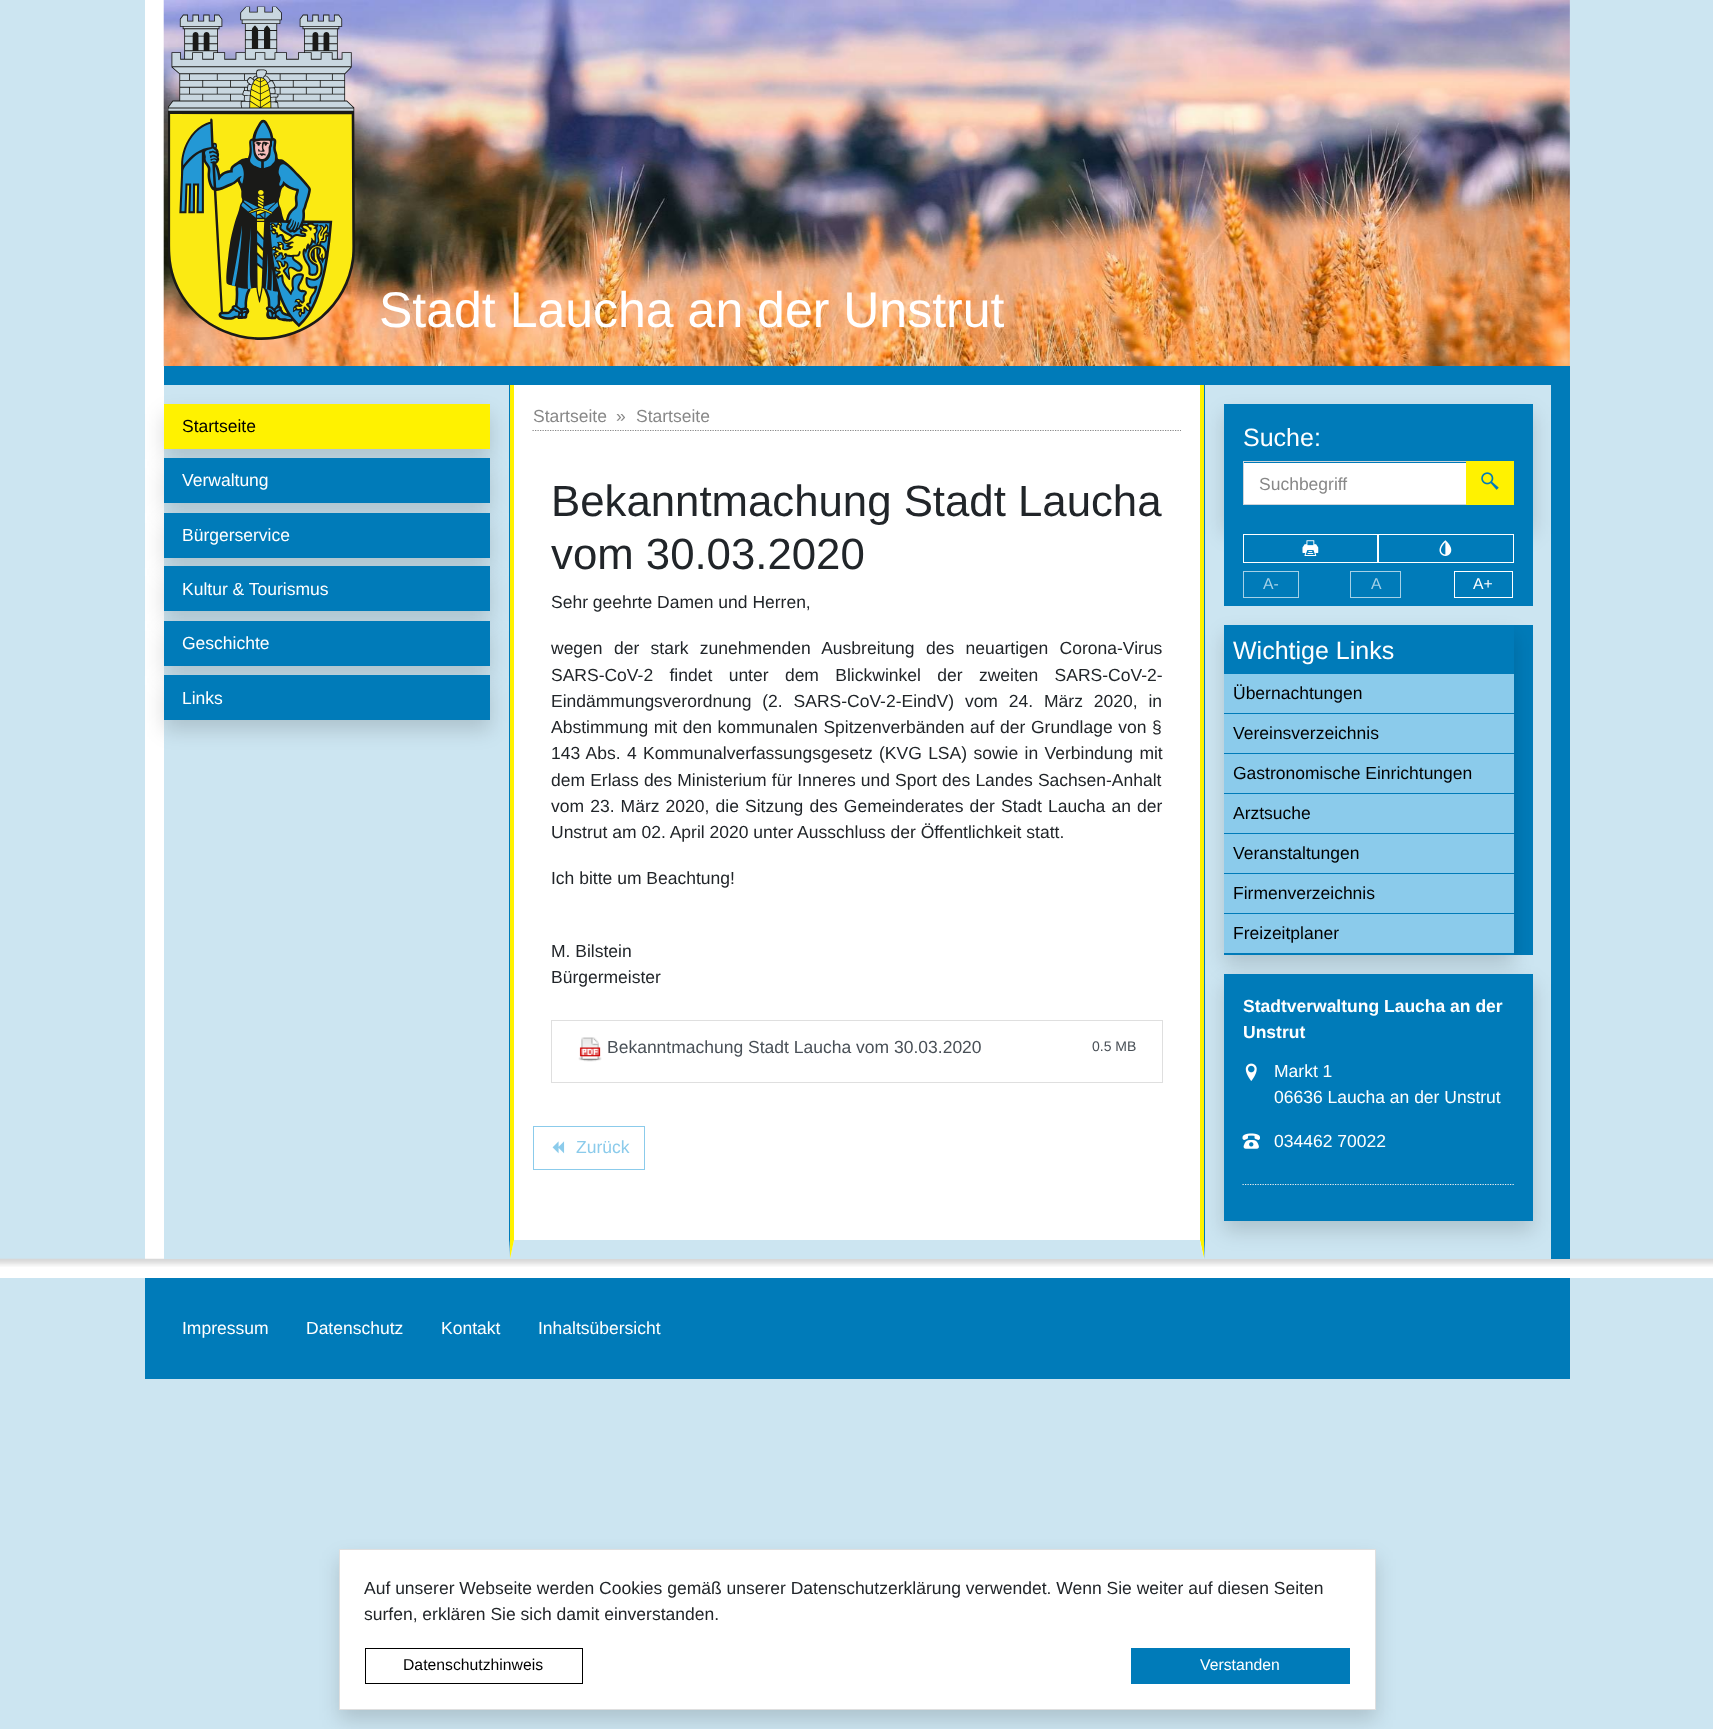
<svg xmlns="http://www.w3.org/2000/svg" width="1713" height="1729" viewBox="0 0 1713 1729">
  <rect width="100%" height="100%" fill="rgb(204,229,241)"/>
  <rect x="145" y="0" width="19" height="1259" fill="rgb(255,255,255)"/>
  <image x="163" y="0" width="1407" height="367" href="pic1.png"/>
  <image x="167" y="6" width="188" height="334" href="pic2.png"/>
  <text x="379" y="327" font-family="Liberation Sans" font-size="50" fill="rgb(255,255,255)">Stadt Laucha an der Unstrut</text>
  <rect x="164" y="366" width="1387" height="19" fill="rgb(0,123,185)"/>
  <image x="0" y="1258" width="1713" height="9" href="pic10.png"/>
  <rect x="1551" y="366" width="19" height="893" fill="rgb(0,123,185)"/>
  <rect x="164" y="1258" width="346" height="1" fill="rgb(204,229,241)"/>
  <path d="M510 385V1259L509 1240V385Z" fill="rgb(0,123,185)"/>
  <path d="M510 1259H164V1240H509Z" fill="rgb(204,229,241)"/>
  <rect x="164" y="414" width="326" height="45" fill="rgba(0,0,0,0.15)" filter="blur(10px)"/>
  <rect x="164" y="404" width="326" height="45" fill="rgb(255,242,0)"/>
  <text x="182" y="432" font-family="Liberation Sans" font-size="17.5" fill="rgb(0,0,0)">Startseite</text>
  <rect x="164" y="468" width="326" height="45" fill="rgba(0,0,0,0.15)" filter="blur(10px)"/>
  <rect x="164" y="458" width="326" height="45" fill="rgb(0,123,185)"/>
  <text x="182" y="486" font-family="Liberation Sans" font-size="17.5" fill="rgb(255,255,255)">Verwaltung</text>
  <rect x="164" y="523" width="326" height="45" fill="rgba(0,0,0,0.15)" filter="blur(10px)"/>
  <rect x="164" y="513" width="326" height="45" fill="rgb(0,123,185)"/>
  <text x="182" y="541" font-family="Liberation Sans" font-size="17.5" fill="rgb(255,255,255)">Bürgerservice</text>
  <rect x="164" y="576" width="326" height="45" fill="rgba(0,0,0,0.15)" filter="blur(10px)"/>
  <rect x="164" y="566" width="326" height="45" fill="rgb(0,123,185)"/>
  <text x="182" y="595" font-family="Liberation Sans" font-size="17.5" fill="rgb(255,255,255)">Kultur &amp; Tourismus</text>
  <rect x="164" y="631" width="326" height="45" fill="rgba(0,0,0,0.15)" filter="blur(10px)"/>
  <rect x="164" y="621" width="326" height="45" fill="rgb(0,123,185)"/>
  <text x="182" y="649" font-family="Liberation Sans" font-size="17.5" fill="rgb(255,255,255)">Geschichte</text>
  <rect x="164" y="685" width="326" height="45" fill="rgba(0,0,0,0.15)" filter="blur(10px)"/>
  <rect x="164" y="675" width="326" height="45" fill="rgb(0,123,185)"/>
  <text x="182" y="704" font-family="Liberation Sans" font-size="17.5" fill="rgb(255,255,255)">Links</text>
  <rect x="510" y="385" width="694" height="874" fill="rgb(255,255,255)"/>
  <path d="M1204 385V1259L1200 1240V385Z" fill="rgb(255,242,0)"/>
  <path d="M1204 1259H510L514 1240H1200Z" fill="rgb(204,229,241)"/>
  <path d="M510 1259V385H514V1240Z" fill="rgb(255,242,0)"/>
  <path d="M532.5 430.5H1181" fill="none" stroke="rgb(136,136,136)" stroke-width="1.2" stroke-dasharray="1.25 1.25"/>
  <g font-family="Liberation Sans" font-size="17.5" fill="rgb(136,136,136)">
    <text x="533" y="422">Startseite</text>
    <text x="616" y="422">»</text>
    <text x="636" y="422">Startseite</text>
  </g>
  <g font-family="Liberation Sans" font-size="43.75" fill="rgb(33,37,41)">
    <text>
      <tspan x="551" y="516">Bekanntmachung Stadt Laucha</tspan>
      <tspan x="551" y="569">vom 30.03.2020</tspan>
    </text>
  </g>
  <g font-family="Liberation Sans" font-size="17.5" fill="rgb(33,37,41)">
    <text x="551" y="608">Sehr geehrte Damen und Herren,</text>
    <text>
      <tspan x="551" y="654" word-spacing="6.5">wegen der stark zunehmenden Ausbreitung des neuartigen Corona-Virus</tspan>
      <tspan x="551" y="681" word-spacing="11.5">SARS-CoV-2 findet unter dem Blickwinkel der zweiten SARS-CoV-2-</tspan>
      <tspan x="551" y="707" word-spacing="6">Eindämmungsverordnung (2. SARS-CoV-2-EindV) vom 24. März 2020, in</tspan>
      <tspan x="551" y="733" word-spacing="0.75">Abstimmung mit den kommunalen Spitzenverbänden auf der Grundlage von §</tspan>
      <tspan x="551" y="759" word-spacing="1.5">143 Abs. 4 Kommunalverfassungsgesetz (KVG LSA) sowie in Verbindung mit</tspan>
      <tspan x="551" y="786" word-spacing="0.25">dem Erlass des Ministerium für Inneres und Sport des Landes Sachsen-Anhalt</tspan>
      <tspan x="551" y="812" word-spacing="1.25">vom 23. März 2020, die Sitzung des Gemeinderates der Stadt Laucha an der</tspan>
      <tspan x="551" y="838">Unstrut am 02. April 2020 unter Ausschluss der Öffentlichkeit statt.</tspan>
    </text>
    <text x="551" y="884">Ich bitte um Beachtung!</text>
    <text>
      <tspan x="551" y="957">M. Bilstein</tspan>
      <tspan x="551" y="983">Bürgermeister</tspan>
    </text>
  </g>
  <rect x="551.5" y="1020.5" width="611" height="62" fill="none" stroke="rgb(223,223,223)"/>
  <image x="578" y="1037" width="24" height="25" href="pic3.png"/>
  <text x="607" y="1053" font-family="Liberation Sans" font-size="17.5" fill="rgb(73,80,87)">Bekanntmachung Stadt Laucha vom 30.03.2020</text>
  <text x="1092" y="1051" font-family="Liberation Sans" font-size="14" fill="rgb(73,80,87)">0.5 MB</text>
  <rect x="533.5" y="1126.5" width="111" height="43" fill="none" stroke="rgb(139,203,235)"/>
  <image x="552" y="1141" width="13" height="13" href="pic4.png"/>
  <text x="576" y="1153" font-family="Liberation Sans" font-size="17.5" fill="rgb(139,203,235)">Zurück</text>
  <path d="M1551 1259H1204L1205 1240H1551Z" fill="rgb(204,229,241)"/>
  <path d="M1204 1259V385H1205V1240Z" fill="rgb(0,123,185)"/>
  <rect x="1224" y="414" width="309" height="120" fill="rgba(0,0,0,0.15)" filter="blur(10px)"/>
  <rect x="1224" y="404" width="309" height="202" fill="rgb(0,123,185)"/>
  <text x="1243" y="446" font-family="Liberation Sans" font-size="25" fill="rgb(255,255,255)">Suche:</text>
  <rect x="1244" y="463" width="222" height="41" fill="rgb(255,255,255)"/>
  <rect x="1243.5" y="461.5" width="224" height="43" fill="none" stroke="rgb(206,212,218)"/>
  <text x="1259" y="490" font-family="Liberation Sans" font-size="17.5" fill="rgb(136,136,136)">Suchbegriff</text>
  <rect x="1466" y="461" width="48" height="44" fill="rgb(255,242,0)"/>
  <image x="1481" y="472" width="18" height="18" href="pic5.png"/>
  <rect x="1243.5" y="534.5" width="134" height="28" fill="none" stroke="rgb(255,255,255)"/>
  <image x="1302" y="540" width="17" height="16" href="pic6.png"/>
  <rect x="1378.5" y="534.5" width="135" height="28" fill="none" stroke="rgb(255,255,255)"/>
  <image x="1439" y="540" width="13" height="16" href="pic7.png"/>
  <rect x="1243.5" y="571.5" width="55" height="26" fill="none" stroke="rgb(166,209,231)"/>
  <text x="1263" y="589" font-family="Liberation Sans" font-size="15.75" fill="rgb(166,209,231)">A-</text>
  <rect x="1350.5" y="571.5" width="50" height="26" fill="none" stroke="rgb(166,209,231)"/>
  <text x="1371" y="589" font-family="Liberation Sans" font-size="15.75" fill="rgb(166,209,231)">A</text>
  <rect x="1454.5" y="571.5" width="58" height="26" fill="none" stroke="rgb(255,255,255)"/>
  <text x="1473" y="589" font-family="Liberation Sans" font-size="15.75" fill="rgb(255,255,255)">A+</text>
  <rect x="1514" y="625" width="19" height="330" fill="rgb(0,123,185)"/>
  <rect x="1224" y="635" width="290" height="330" fill="rgba(0,0,0,0.15)" filter="blur(10px)"/>
  <rect x="1224" y="625" width="290" height="330" fill="rgb(0,123,185)"/>
  <text x="1233" y="659" font-family="Liberation Sans" font-size="25" fill="rgb(255,255,255)">Wichtige Links</text>
  <rect x="1224" y="674" width="290" height="39" fill="rgb(139,203,235)"/>
  <text x="1233" y="699" font-family="Liberation Sans" font-size="17.5" fill="rgb(0,0,0)">Übernachtungen</text>
  <rect x="1224" y="714" width="290" height="39" fill="rgb(139,203,235)"/>
  <text x="1233" y="739" font-family="Liberation Sans" font-size="17.5" fill="rgb(0,0,0)">Vereinsverzeichnis</text>
  <rect x="1224" y="754" width="290" height="39" fill="rgb(139,203,235)"/>
  <text x="1233" y="779" font-family="Liberation Sans" font-size="17.5" fill="rgb(0,0,0)">Gastronomische Einrichtungen</text>
  <rect x="1224" y="794" width="290" height="39" fill="rgb(139,203,235)"/>
  <text x="1233" y="819" font-family="Liberation Sans" font-size="17.5" fill="rgb(0,0,0)">Arztsuche</text>
  <rect x="1224" y="834" width="290" height="39" fill="rgb(139,203,235)"/>
  <text x="1233" y="859" font-family="Liberation Sans" font-size="17.5" fill="rgb(0,0,0)">Veranstaltungen</text>
  <rect x="1224" y="874" width="290" height="39" fill="rgb(139,203,235)"/>
  <text x="1233" y="899" font-family="Liberation Sans" font-size="17.5" fill="rgb(0,0,0)">Firmenverzeichnis</text>
  <rect x="1224" y="914" width="290" height="39" fill="rgb(139,203,235)"/>
  <text x="1233" y="939" font-family="Liberation Sans" font-size="17.5" fill="rgb(0,0,0)">Freizeitplaner</text>
  <rect x="1224" y="984" width="309" height="247" fill="rgba(0,0,0,0.15)" filter="blur(10px)"/>
  <rect x="1224" y="974" width="309" height="247" fill="rgb(0,123,185)"/>
  <path d="M1242.5 1184.5H1514" fill="none" stroke="rgb(238,238,238)" stroke-width="1.2" stroke-dasharray="1.25 1.25"/>
  <g font-family="Liberation Sans" font-size="17.5" font-weight="bold" fill="rgb(255,255,255)">
    <text>
      <tspan x="1243" y="1012">Stadtverwaltung Laucha an der</tspan>
      <tspan x="1243" y="1038">Unstrut</tspan>
    </text>
  </g>
  <image x="1245" y="1063" width="12" height="18" href="pic8.png"/>
  <g font-family="Liberation Sans" font-size="17.5" fill="rgb(255,255,255)">
    <text>
      <tspan x="1274" y="1077">Markt 1</tspan>
      <tspan x="1274" y="1103">06636 Laucha an der Unstrut</tspan>
    </text>
  </g>
  <image x="1242" y="1133" width="18" height="16" href="pic9.png"/>
  <text x="1274" y="1147" font-family="Liberation Sans" font-size="17.5" fill="rgb(255,255,255)">034462 70022</text>
  <rect x="0" y="1267" width="1713" height="11" fill="rgb(255,255,255)"/>
  <rect x="145" y="1278" width="1425" height="101" fill="rgb(0,123,185)"/>
  <g font-family="Liberation Sans" font-size="17.5" fill="rgb(255,255,255)">
    <text x="182" y="1334">Impressum</text>
    <text x="306" y="1334">Datenschutz</text>
    <text x="441" y="1334">Kontakt</text>
    <text x="538" y="1334">Inhaltsübersicht</text>
  </g>
  <rect x="339" y="1559" width="1037" height="161" fill="rgba(0,0,0,0.15)" filter="blur(10px)"/>
  <rect x="339.5" y="1549.5" width="1036" height="160" fill="rgb(255,255,255)" stroke="rgb(223,223,223)"/>
  <g font-family="Liberation Sans" font-size="17.5" fill="rgb(33,37,41)">
    <text>
      <tspan x="364" y="1594">Auf unserer Webseite werden Cookies gemäß unserer Datenschutzerklärung verwendet. Wenn Sie weiter auf diesen Seiten</tspan>
      <tspan x="364" y="1620">surfen, erklären Sie sich damit einverstanden.</tspan>
    </text>
  </g>
  <rect x="365.5" y="1648.5" width="217" height="35" fill="none" stroke="rgb(0,0,0)"/>
  <text x="403" y="1670" font-family="Liberation Sans" font-size="15.75" fill="rgb(0,0,0)">Datenschutzhinweis</text>
  <rect x="1131" y="1648" width="219" height="36" fill="rgb(0,123,185)"/>
  <text x="1200" y="1670" font-family="Liberation Sans" font-size="15.75" fill="rgb(255,255,255)">Verstanden</text>
</svg>
